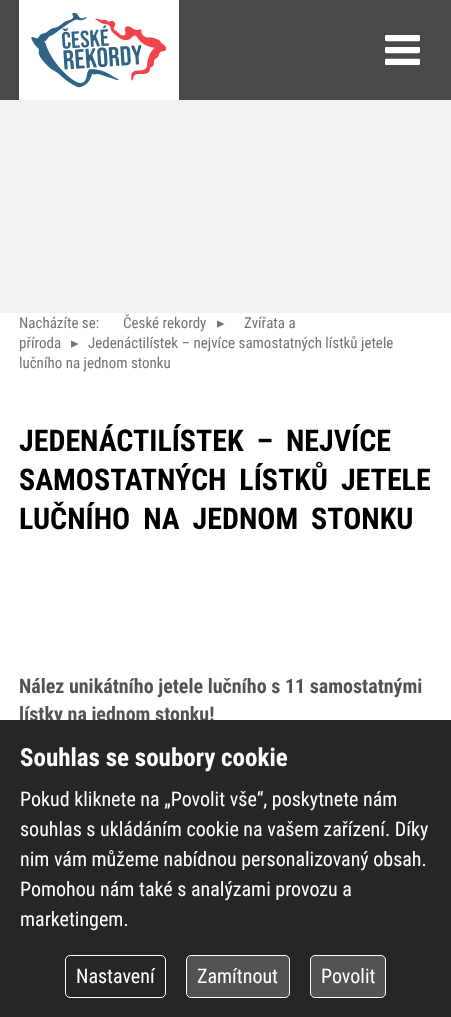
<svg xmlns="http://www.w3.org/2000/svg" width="451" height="1017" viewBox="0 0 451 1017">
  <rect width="100%" height="100%" fill="rgb(255,255,255)"/>
  <rect x="0" y="0" width="451" height="100" fill="rgb(73,73,73)"/>
  <rect x="19" y="0" width="160" height="100" fill="rgb(255,255,255)"/>
  <image x="31" y="13" width="135" height="75" href="pic1.png"/>
  <image x="385" y="35" width="35" height="30" href="pic2.png"/>
  <rect x="0" y="100" width="451" height="213" fill="rgb(242,242,242)"/>
  <g font-family="Roboto Condensed" font-size="15" fill="rgb(115,115,115)">
    <text x="19" y="328">Nacházíte se:</text>
    <text x="123" y="328">České rekordy</text>
  </g>
  <text x="217" y="328" font-family="DejaVu Sans" font-size="15" fill="rgb(115,115,115)">▸</text>
  <g font-family="Roboto Condensed" font-size="15" fill="rgb(115,115,115)">
    <text x="244" y="328">Zvířata a</text>
    <text x="19" y="348">příroda</text>
  </g>
  <text x="71" y="348" font-family="DejaVu Sans" font-size="15" fill="rgb(115,115,115)">▸</text>
  <g font-family="Roboto Condensed" font-size="15" fill="rgb(115,115,115)">
    <text x="88" y="348">Jedenáctilístek – nejvíce samostatných lístků jetele</text>
    <text x="19" y="368">lučního na jednom stonku</text>
  </g>
  <g font-family="Roboto Condensed" font-size="30" font-weight="bold" fill="rgb(0,0,0)">
    <text>
      <tspan x="19" y="451" word-spacing="6">JEDENÁCTILÍSTEK – NEJVÍCE</tspan>
      <tspan x="19" y="490" word-spacing="6">SAMOSTATNÝCH LÍSTKŮ JETELE</tspan>
      <tspan x="19" y="529" word-spacing="6">LUČNÍHO NA JEDNOM STONKU</tspan>
    </text>
  </g>
  <g font-family="Roboto Condensed" font-size="20" font-weight="bold" fill="rgb(82,82,82)">
    <text>
      <tspan x="19" y="693">Nález unikátního jetele lučního s 11 samostatnými</tspan>
      <tspan x="19" y="721">lístky na jednom stonku!</tspan>
    </text>
  </g>
  <rect x="0" y="720" width="451" height="297" fill="rgb(38,38,38)"/>
  <text x="20" y="766" font-family="Roboto Condensed" font-size="25" font-weight="bold" fill="rgb(255,255,255)">Souhlas se soubory cookie</text>
  <g font-family="Roboto Condensed" font-size="20" fill="rgb(255,255,255)">
    <text>
      <tspan x="20" y="806">Pokud kliknete na „Povolit vše“, poskytnete nám</tspan>
      <tspan x="20" y="836">souhlas s ukládáním cookie na vašem zařízení. Díky</tspan>
      <tspan x="20" y="866">nim vám můžeme nabídnou personalizovaný obsah.</tspan>
      <tspan x="20" y="896">Pomohou nám také s analýzami provozu a</tspan>
      <tspan x="20" y="926">marketingem.</tspan>
    </text>
  </g>
  <rect x="65.5" y="955.5" width="100" height="42" rx="4.5" fill="none" stroke="rgb(255,255,255)"/>
  <text x="76" y="983" font-family="Roboto Condensed" font-size="20" fill="rgb(255,255,255)">Nastavení</text>
  <rect x="186.5" y="955.5" width="103" height="42" rx="4.5" fill="rgb(82,82,82)" stroke="rgb(255,255,255)"/>
  <text x="197" y="983" font-family="Roboto Condensed" font-size="20" fill="rgb(255,255,255)">Zamítnout</text>
  <rect x="310.5" y="955.5" width="75" height="42" rx="4.5" fill="rgb(82,82,82)" stroke="rgb(255,255,255)"/>
  <text x="321" y="983" font-family="Roboto Condensed" font-size="20" fill="rgb(255,255,255)">Povolit</text>
</svg>
